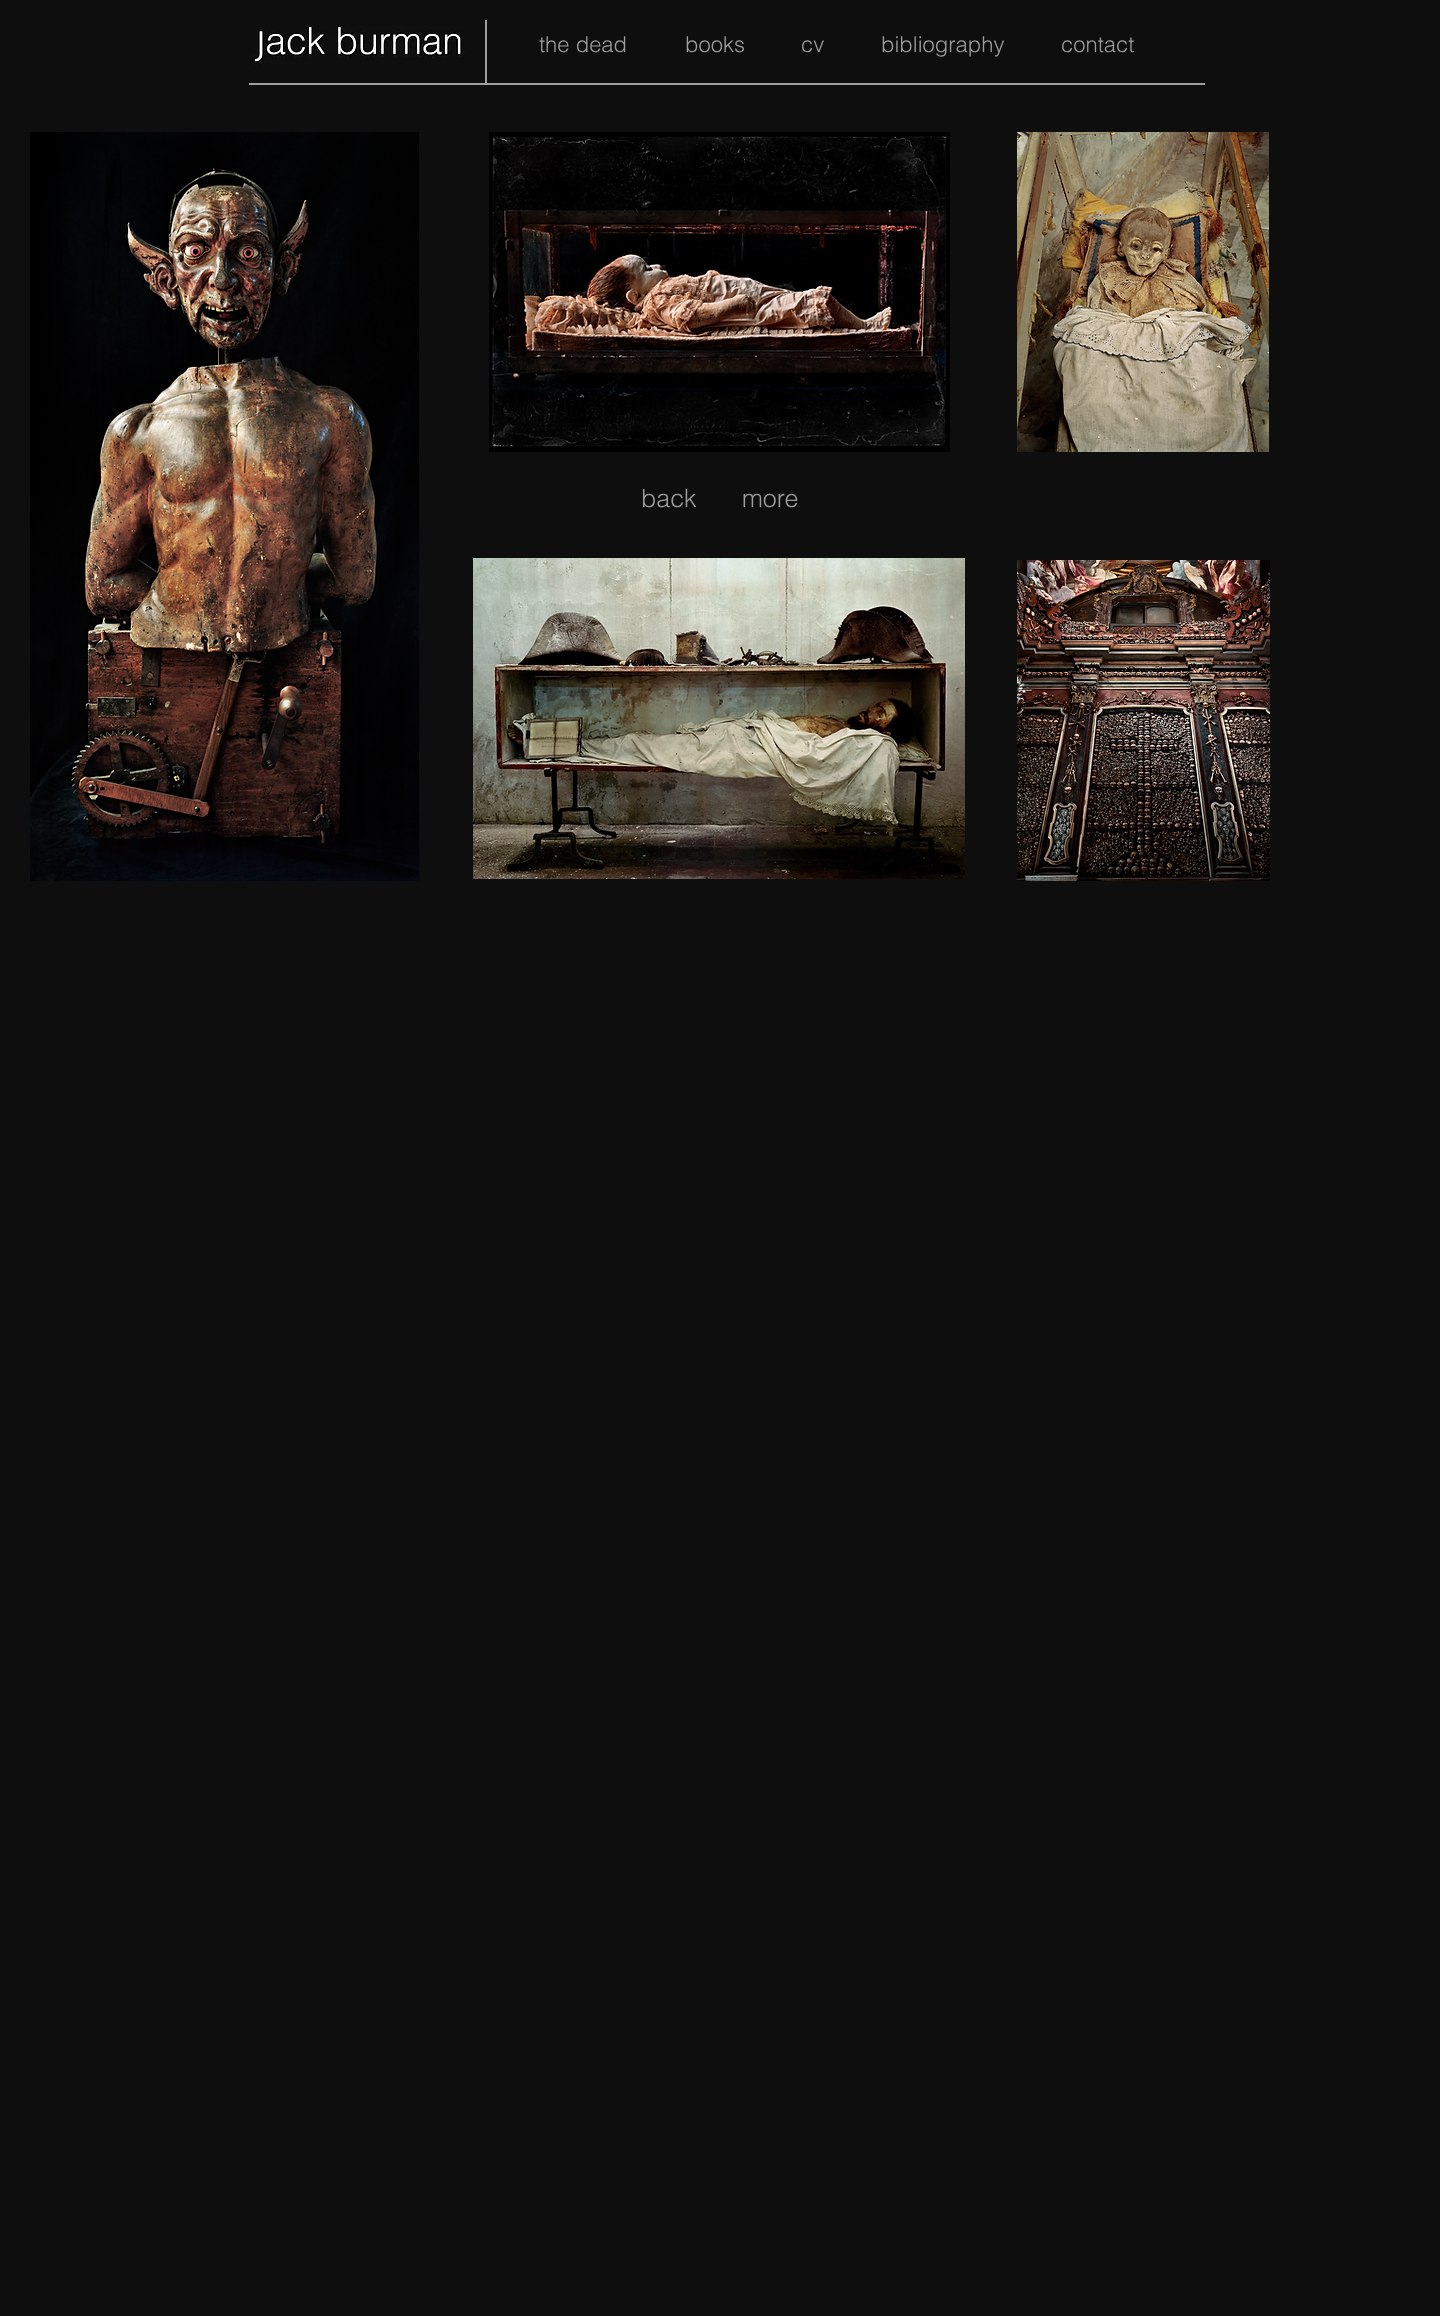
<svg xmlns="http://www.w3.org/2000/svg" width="1440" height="2316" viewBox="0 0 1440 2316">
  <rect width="100%" height="100%" fill="rgb(14,14,14)"/>
  <image x="253" y="26" width="212" height="39" href="pic1.png"/>
  <rect x="249" y="83" width="956" height="2" fill="rgb(158,158,158)"/>
  <rect x="485" y="20" width="2" height="64" fill="rgb(158,158,158)"/>
  <g font-family="helvetica" font-size="22" font-weight="300" fill="rgb(158,158,158)">
    <text x="539" y="52">the dead</text>
    <text x="685" y="52">books</text>
    <text x="801" y="52">cv</text>
    <text x="881" y="52">bibliography</text>
    <text x="1061" y="52">contact</text>
  </g>
  <image x="30" y="132" width="389" height="749" href="pic2.png"/>
  <image x="489" y="132" width="461" height="320" href="pic3.png"/>
  <image x="1017" y="132" width="252" height="320" href="pic4.png"/>
  <g font-family="helvetica" font-size="25" font-weight="300" fill="rgb(158,158,158)">
    <text x="641" y="507">back</text>
    <text x="742" y="507">more</text>
  </g>
  <image x="473" y="558" width="492" height="321" href="pic5.png"/>
  <image x="1017" y="560" width="253" height="321" href="pic6.png"/>
</svg>
